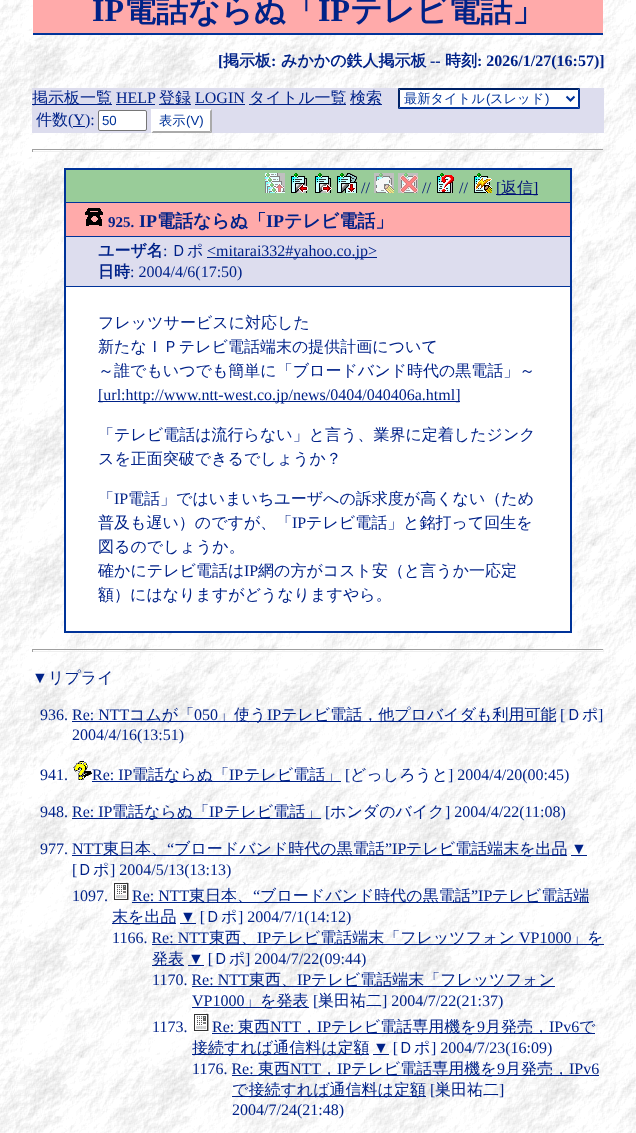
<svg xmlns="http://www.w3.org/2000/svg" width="636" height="1133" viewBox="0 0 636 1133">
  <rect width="100%" height="100%" fill="rgb(255,255,255)"/>
  <image x="0" y="0" width="636" height="1133" href="pic1.png"/>
  <rect x="33" y="0" width="570" height="33" fill="rgb(255,170,170)"/>
  <rect x="33" y="33" width="570" height="2" fill="rgb(0,51,153)"/>
  <text x="92" y="21" font-family="Liberation Serif" font-size="32" font-weight="bold" fill="rgb(0,34,136)">IP</text>
  <text x="124" y="21" font-family="WenQuanYi Zen Hei" font-size="32" font-weight="bold" fill="rgb(0,34,136)">電話ならぬ「</text>
  <text x="318" y="21" font-family="Liberation Serif" font-size="32" font-weight="bold" fill="rgb(0,34,136)">IP</text>
  <text x="350" y="21" font-family="WenQuanYi Zen Hei" font-size="32" font-weight="bold" fill="rgb(0,34,136)">テレビ電話」</text>
  <text x="218" y="66" font-family="Liberation Serif" font-size="16" font-weight="bold" fill="rgb(0,34,136)">[</text>
  <text x="223" y="66" font-family="WenQuanYi Zen Hei" font-size="16" font-weight="bold" fill="rgb(0,34,136)">掲示板</text>
  <text x="271" y="66" font-family="Liberation Serif" font-size="16" font-weight="bold" fill="rgb(0,34,136)">:</text>
  <text x="281" y="66" font-family="WenQuanYi Zen Hei" font-size="16" font-weight="bold" fill="rgb(0,34,136)">みかかの鉄人掲示板</text>
  <text x="430" y="66" font-family="Liberation Serif" font-size="16" font-weight="bold" fill="rgb(0,34,136)">--</text>
  <text x="445" y="66" font-family="WenQuanYi Zen Hei" font-size="16" font-weight="bold" fill="rgb(0,34,136)">時刻</text>
  <text x="477" y="66" font-family="Liberation Serif" font-size="16" font-weight="bold" fill="rgb(0,34,136)">: 2026/1/27(16:57)]</text>
  <rect x="32" y="88" width="572" height="45" fill="rgb(221,221,238)"/>
  <rect x="32" y="104" width="80" height="1" fill="rgb(0,34,136)"/>
  <text x="32" y="103" font-family="WenQuanYi Zen Hei" font-size="16" font-weight="500" fill="rgb(0,34,136)">掲示板一覧</text>
  <text x="116" y="103" font-family="Liberation Serif" font-size="16" fill="rgb(0,34,136)">HELP</text>
  <rect x="116" y="104" width="39" height="1" fill="rgb(0,34,136)"/>
  <rect x="159" y="104" width="32" height="1" fill="rgb(0,34,136)"/>
  <text x="159" y="103" font-family="WenQuanYi Zen Hei" font-size="16" font-weight="500" fill="rgb(0,34,136)">登録</text>
  <text x="195" y="103" font-family="Liberation Serif" font-size="16" fill="rgb(0,34,136)">LOGIN</text>
  <rect x="195" y="104" width="50" height="1" fill="rgb(0,34,136)"/>
  <rect x="249" y="104" width="97" height="1" fill="rgb(0,34,136)"/>
  <text x="249" y="103" font-family="WenQuanYi Zen Hei" font-size="16" font-weight="500" fill="rgb(0,34,136)">タイトル一覧</text>
  <rect x="350" y="104" width="32" height="1" fill="rgb(0,34,136)"/>
  <text x="350" y="103" font-family="WenQuanYi Zen Hei" font-size="16" font-weight="500" fill="rgb(0,34,136)">検索</text>
  <rect x="398" y="88" width="182" height="21" fill="rgb(255,255,255)"/>
  <path d="M398 88H580L578 90H400Z" fill="rgb(0,34,102)"/>
  <path d="M580 88V109L578 107V90Z" fill="rgb(0,51,153)"/>
  <path d="M580 109H398L400 107H578Z" fill="rgb(0,51,153)"/>
  <path d="M398 109V88L400 90V107Z" fill="rgb(0,34,102)"/>
  <path d="M566.5 96.5L570.5 100.5L574.5 96.5" fill="none" stroke="rgb(0,51,153)" stroke-width="2"/>
  <text x="404" y="103" font-family="WenQuanYi Zen Hei" font-size="13.25" font-weight="500" fill="rgb(0,51,153)">最新タイトル</text>
  <text x="486" y="103" font-family="Liberation Sans" font-size="13.25" fill="rgb(0,51,153)">(</text>
  <text x="490" y="103" font-family="WenQuanYi Zen Hei" font-size="13.25" font-weight="500" fill="rgb(0,51,153)">スレッド</text>
  <text x="545" y="103" font-family="Liberation Sans" font-size="13.25" fill="rgb(0,51,153)">)</text>
  <text x="36" y="125" font-family="WenQuanYi Zen Hei" font-size="16" font-weight="500" fill="rgb(0,34,136)">件数</text>
  <text x="68" y="125" font-family="Liberation Serif" font-size="16" fill="rgb(0,34,136)">(Y):</text>
  <rect x="73" y="126" width="12" height="1" fill="rgb(0,34,136)"/>
  <rect x="98.5" y="110.5" width="48" height="20" rx="1.5" fill="rgb(255,255,255)" stroke="rgb(118,118,118)"/>
  <text x="102" y="125" font-family="Liberation Sans" font-size="13.25" fill="rgb(0,51,153)">50</text>
  <rect x="151" y="109" width="61" height="24" fill="rgb(255,255,255)"/>
  <path d="M212 109V133L210 131V111Z" fill="rgb(170,170,170)"/>
  <path d="M212 133H151L153 131H210Z" fill="rgb(170,170,170)"/>
  <path d="M151 133V109L153 111V131Z" fill="rgb(255,255,255)"/>
  <text x="159" y="125" font-family="WenQuanYi Zen Hei" font-size="13.25" font-weight="500" fill="rgb(0,51,153)">表示</text>
  <text x="186" y="125" font-family="Liberation Sans" font-size="13.25" fill="rgb(0,51,153)">(V)</text>
  <rect x="32" y="149" width="572" height="1" fill="rgb(159,159,159)"/>
  <rect x="603" y="149" width="1" height="3" fill="rgb(238,238,238)"/>
  <rect x="32" y="151" width="572" height="1" fill="rgb(238,238,238)"/>
  <rect x="32" y="149" width="1" height="3" fill="rgb(159,159,159)"/>
  <rect x="66" y="287" width="504" height="344" fill="rgb(255,255,255)"/>
  <rect x="65" y="169" width="506" height="463" fill="none" stroke="rgb(0,51,153)" stroke-width="2"/>
  <rect x="66" y="170" width="504" height="32" fill="rgb(153,204,153)"/>
  <rect x="66" y="202" width="504" height="1" fill="rgb(0,51,153)"/>
  <image x="265" y="173" width="20" height="20" href="pic2.png"/>
  <image x="291" y="173" width="17" height="20" href="pic3.png"/>
  <image x="315" y="173" width="17" height="20" href="pic4.png"/>
  <image x="337" y="173" width="20" height="20" href="pic5.png"/>
  <text x="361" y="193" font-family="Liberation Serif" font-size="16" fill="rgb(0,17,119)">//</text>
  <image x="374" y="173" width="20" height="20" href="pic6.png"/>
  <image x="398" y="173" width="20" height="20" href="pic7.png"/>
  <text x="422" y="193" font-family="Liberation Serif" font-size="16" fill="rgb(0,17,119)">//</text>
  <image x="437" y="173" width="17" height="20" href="pic8.png"/>
  <text x="459" y="193" font-family="Liberation Serif" font-size="16" fill="rgb(0,17,119)">//</text>
  <image x="474" y="173" width="18" height="20" href="pic9.png"/>
  <rect x="496" y="194" width="42" height="1" fill="rgb(0,17,119)"/>
  <text x="496" y="193" font-family="Liberation Serif" font-size="16" fill="rgb(0,17,119)">[</text>
  <text x="501" y="193" font-family="WenQuanYi Zen Hei" font-size="16" font-weight="500" fill="rgb(0,17,119)">返信</text>
  <text x="533" y="193" font-family="Liberation Serif" font-size="16" fill="rgb(0,17,119)">]</text>
  <rect x="66" y="203" width="504" height="33" fill="rgb(255,170,170)"/>
  <rect x="66" y="236" width="504" height="1" fill="rgb(0,51,153)"/>
  <image x="85" y="208" width="18" height="18" href="pic10.png"/>
  <text x="108" y="227" font-family="Liberation Serif" font-size="15" font-weight="bold" fill="rgb(0,34,136)">925.</text>
  <text x="139" y="227" font-family="Liberation Serif" font-size="18" font-weight="bold" fill="rgb(0,34,136)">IP</text>
  <text x="157" y="227" font-family="WenQuanYi Zen Hei" font-size="18" font-weight="bold" fill="rgb(0,34,136)">電話ならぬ「</text>
  <text x="266" y="227" font-family="Liberation Serif" font-size="18" font-weight="bold" fill="rgb(0,34,136)">IP</text>
  <text x="284" y="227" font-family="WenQuanYi Zen Hei" font-size="18" font-weight="bold" fill="rgb(0,34,136)">テレビ電話」</text>
  <rect x="66" y="237" width="504" height="49" fill="rgb(221,221,238)"/>
  <rect x="66" y="286" width="504" height="1" fill="rgb(0,51,153)"/>
  <text x="98" y="256" font-family="WenQuanYi Zen Hei" font-size="16" font-weight="bold" fill="rgb(0,34,136)">ユーザ名</text>
  <text x="163" y="256" font-family="Liberation Serif" font-size="16" fill="rgb(0,34,136)">:</text>
  <text x="171" y="256" font-family="WenQuanYi Zen Hei" font-size="16" font-weight="500" fill="rgb(0,34,136)">Ｄポ</text>
  <rect x="207" y="257" width="170" height="1" fill="rgb(0,34,136)"/>
  <text x="207" y="256" font-family="Liberation Serif" font-size="16" fill="rgb(0,34,136)">&lt;mitarai332#yahoo.co.jp&gt;</text>
  <text x="98" y="277" font-family="WenQuanYi Zen Hei" font-size="16" font-weight="bold" fill="rgb(0,34,136)">日時</text>
  <text x="130" y="277" font-family="Liberation Serif" font-size="16" fill="rgb(0,34,136)">: 2004/4/6(17:50)</text>
  <g font-family="WenQuanYi Zen Hei" font-size="16" font-weight="500" fill="rgb(0,34,136)">
    <text>
      <tspan x="98" y="328">フレッツサービスに対応した</tspan>
      <tspan x="98" y="352">新たなＩＰテレビ電話端末の提供計画について</tspan>
      <tspan x="98" y="376">～誰でもいつでも簡単に「ブロードバンド時代の黒電話」～</tspan>
    </text>
  </g>
  <rect x="98" y="401" width="362" height="1" fill="rgb(0,34,136)"/>
  <text x="98" y="400" font-family="Liberation Serif" font-size="16" fill="rgb(0,34,136)">[url:http://www.ntt-west.co.jp/news/0404/040406a.html]</text>
  <g font-family="WenQuanYi Zen Hei" font-size="16" font-weight="500" fill="rgb(0,34,136)">
    <text>
      <tspan x="98" y="440">「テレビ電話は流行らない」と言う、業界に定着したジンク</tspan>
      <tspan x="98" y="464">スを正面突破できるでしょうか？</tspan>
    </text>
    <text x="98" y="504">「</text>
  </g>
  <text x="114" y="504" font-family="Liberation Serif" font-size="16" fill="rgb(0,34,136)">IP</text>
  <g font-family="WenQuanYi Zen Hei" font-size="16" font-weight="500" fill="rgb(0,34,136)">
    <text x="128" y="504">電話」ではいまいちユーザへの訴求度が高くない（ため</text>
    <text x="98" y="528">普及も遅い）のですが、「</text>
  </g>
  <text x="292" y="528" font-family="Liberation Serif" font-size="16" fill="rgb(0,34,136)">IP</text>
  <g font-family="WenQuanYi Zen Hei" font-size="16" font-weight="500" fill="rgb(0,34,136)">
    <text x="306" y="528">テレビ電話」と銘打って回生を</text>
    <text>
      <tspan x="98" y="552">図るのでしょうか。</tspan>
      <tspan x="98" y="576">確かにテレビ電話は</tspan>
    </text>
  </g>
  <text x="244" y="576" font-family="Liberation Serif" font-size="16" fill="rgb(0,34,136)">IP</text>
  <g font-family="WenQuanYi Zen Hei" font-size="16" font-weight="500" fill="rgb(0,34,136)">
    <text x="258" y="576">網の方がコスト安（と言うか一応定</text>
    <text x="98" y="600">額）にはなりますがどうなりますやら。</text>
  </g>
  <rect x="32" y="649" width="572" height="1" fill="rgb(159,159,159)"/>
  <rect x="603" y="649" width="1" height="3" fill="rgb(238,238,238)"/>
  <rect x="32" y="651" width="572" height="1" fill="rgb(238,238,238)"/>
  <rect x="32" y="649" width="1" height="3" fill="rgb(159,159,159)"/>
  <text x="32" y="683" font-family="Liberation Serif" font-size="16" fill="rgb(0,34,136)">▼</text>
  <text x="48" y="683" font-family="WenQuanYi Zen Hei" font-size="16" font-weight="500" fill="rgb(0,34,136)">リプライ</text>
  <text x="40" y="720" font-family="Liberation Serif" font-size="16" fill="rgb(0,34,136)">936. Re: NTT</text>
  <rect x="72" y="721" width="484" height="1" fill="rgb(0,34,136)"/>
  <text x="129" y="720" font-family="WenQuanYi Zen Hei" font-size="16" font-weight="500" fill="rgb(0,34,136)">コムが「</text>
  <text x="194" y="720" font-family="Liberation Serif" font-size="16" fill="rgb(0,34,136)">050</text>
  <text x="218" y="720" font-family="WenQuanYi Zen Hei" font-size="16" font-weight="500" fill="rgb(0,34,136)">」使う</text>
  <text x="267" y="720" font-family="Liberation Serif" font-size="16" fill="rgb(0,34,136)">IP</text>
  <text x="281" y="720" font-family="WenQuanYi Zen Hei" font-size="16" font-weight="500" fill="rgb(0,34,136)">テレビ電話，他プロバイダも利用可能</text>
  <text x="560" y="720" font-family="Liberation Serif" font-size="16" fill="rgb(0,34,136)">[</text>
  <text x="566" y="720" font-family="WenQuanYi Zen Hei" font-size="16" font-weight="500" fill="rgb(0,34,136)">Ｄポ</text>
  <g font-family="Liberation Serif" font-size="16" fill="rgb(0,34,136)">
    <text x="598" y="720">]</text>
    <text x="72" y="740">2004/4/16(13:51)</text>
    <text x="40" y="780">941.</text>
  </g>
  <image x="73" y="761" width="19" height="19" href="pic11.png"/>
  <text x="92" y="780" font-family="Liberation Serif" font-size="16" fill="rgb(0,34,136)">Re: IP</text>
  <rect x="92" y="781" width="249" height="1" fill="rgb(0,34,136)"/>
  <text x="132" y="780" font-family="WenQuanYi Zen Hei" font-size="16" font-weight="500" fill="rgb(0,34,136)">電話ならぬ「</text>
  <text x="229" y="780" font-family="Liberation Serif" font-size="16" fill="rgb(0,34,136)">IP</text>
  <text x="244" y="780" font-family="WenQuanYi Zen Hei" font-size="16" font-weight="500" fill="rgb(0,34,136)">テレビ電話」</text>
  <text x="345" y="780" font-family="Liberation Serif" font-size="16" fill="rgb(0,34,136)">[</text>
  <text x="350" y="780" font-family="WenQuanYi Zen Hei" font-size="16" font-weight="500" fill="rgb(0,34,136)">どっしろうと</text>
  <g font-family="Liberation Serif" font-size="16" fill="rgb(0,34,136)">
    <text x="448" y="780">] 2004/4/20(00:45)</text>
    <text x="40" y="817">948. Re: IP</text>
  </g>
  <rect x="72" y="818" width="249" height="1" fill="rgb(0,34,136)"/>
  <text x="112" y="817" font-family="WenQuanYi Zen Hei" font-size="16" font-weight="500" fill="rgb(0,34,136)">電話ならぬ「</text>
  <text x="209" y="817" font-family="Liberation Serif" font-size="16" fill="rgb(0,34,136)">IP</text>
  <text x="224" y="817" font-family="WenQuanYi Zen Hei" font-size="16" font-weight="500" fill="rgb(0,34,136)">テレビ電話」</text>
  <text x="325" y="817" font-family="Liberation Serif" font-size="16" fill="rgb(0,34,136)">[</text>
  <text x="330" y="817" font-family="WenQuanYi Zen Hei" font-size="16" font-weight="500" fill="rgb(0,34,136)">ホンダのバイク</text>
  <g font-family="Liberation Serif" font-size="16" fill="rgb(0,34,136)">
    <text x="445" y="817">] 2004/4/22(11:08)</text>
    <text x="40" y="854">977. NTT</text>
  </g>
  <rect x="72" y="855" width="495" height="1" fill="rgb(0,34,136)"/>
  <text x="103" y="854" font-family="WenQuanYi Zen Hei" font-size="16" font-weight="500" fill="rgb(0,34,136)">東日本、</text>
  <text x="167" y="854" font-family="Liberation Serif" font-size="16" fill="rgb(0,34,136)">“</text>
  <text x="174" y="854" font-family="WenQuanYi Zen Hei" font-size="16" font-weight="500" fill="rgb(0,34,136)">ブロードバンド時代の黒電話</text>
  <text x="385" y="854" font-family="Liberation Serif" font-size="16" fill="rgb(0,34,136)">”IP</text>
  <text x="406" y="854" font-family="WenQuanYi Zen Hei" font-size="16" font-weight="500" fill="rgb(0,34,136)">テレビ電話端末を出品</text>
  <text x="571" y="854" font-family="Liberation Serif" font-size="16" fill="rgb(0,34,136)">▼</text>
  <rect x="571" y="855" width="16" height="1" fill="rgb(0,34,136)"/>
  <text x="72" y="875" font-family="Liberation Serif" font-size="16" fill="rgb(0,34,136)">[</text>
  <text x="77" y="875" font-family="WenQuanYi Zen Hei" font-size="16" font-weight="500" fill="rgb(0,34,136)">Ｄポ</text>
  <g font-family="Liberation Serif" font-size="16" fill="rgb(0,34,136)">
    <text x="110" y="875">] 2004/5/13(13:13)</text>
    <text x="72" y="901">1097.</text>
  </g>
  <image x="112" y="881" width="20" height="19" href="pic12.png"/>
  <text x="132" y="901" font-family="Liberation Serif" font-size="16" fill="rgb(0,34,136)">Re: NTT</text>
  <rect x="132" y="902" width="457" height="1" fill="rgb(0,34,136)"/>
  <text x="189" y="901" font-family="WenQuanYi Zen Hei" font-size="16" font-weight="500" fill="rgb(0,34,136)">東日本、</text>
  <text x="253" y="901" font-family="Liberation Serif" font-size="16" fill="rgb(0,34,136)">“</text>
  <text x="260" y="901" font-family="WenQuanYi Zen Hei" font-size="16" font-weight="500" fill="rgb(0,34,136)">ブロードバンド時代の黒電話</text>
  <text x="471" y="901" font-family="Liberation Serif" font-size="16" fill="rgb(0,34,136)">”IP</text>
  <text x="492" y="901" font-family="WenQuanYi Zen Hei" font-size="16" font-weight="500" fill="rgb(0,34,136)">テレビ電話端</text>
  <rect x="112" y="923" width="64" height="1" fill="rgb(0,34,136)"/>
  <text x="112" y="922" font-family="WenQuanYi Zen Hei" font-size="16" font-weight="500" fill="rgb(0,34,136)">末を出品</text>
  <rect x="180" y="923" width="16" height="1" fill="rgb(0,34,136)"/>
  <text x="180" y="922" font-family="Liberation Serif" font-size="16" fill="rgb(0,34,136)">▼ [</text>
  <text x="205" y="922" font-family="WenQuanYi Zen Hei" font-size="16" font-weight="500" fill="rgb(0,34,136)">Ｄポ</text>
  <g font-family="Liberation Serif" font-size="16" fill="rgb(0,34,136)">
    <text x="238" y="922">] 2004/7/1(14:12)</text>
    <text x="112" y="943">1166. Re: NTT</text>
  </g>
  <rect x="152" y="944" width="452" height="1" fill="rgb(0,34,136)"/>
  <text x="209" y="943" font-family="WenQuanYi Zen Hei" font-size="16" font-weight="500" fill="rgb(0,34,136)">東西、</text>
  <text x="257" y="943" font-family="Liberation Serif" font-size="16" fill="rgb(0,34,136)">IP</text>
  <text x="271" y="943" font-family="WenQuanYi Zen Hei" font-size="16" font-weight="500" fill="rgb(0,34,136)">テレビ電話端末「フレッツフォン</text>
  <text x="519" y="943" font-family="Liberation Serif" font-size="16" fill="rgb(0,34,136)">VP1000</text>
  <text x="571" y="943" font-family="WenQuanYi Zen Hei" font-size="16" font-weight="500" fill="rgb(0,34,136)">」を</text>
  <rect x="152" y="965" width="32" height="1" fill="rgb(0,34,136)"/>
  <text x="152" y="964" font-family="WenQuanYi Zen Hei" font-size="16" font-weight="500" fill="rgb(0,34,136)">発表</text>
  <rect x="188" y="965" width="16" height="1" fill="rgb(0,34,136)"/>
  <text x="188" y="964" font-family="Liberation Serif" font-size="16" fill="rgb(0,34,136)">▼ [</text>
  <text x="213" y="964" font-family="WenQuanYi Zen Hei" font-size="16" font-weight="500" fill="rgb(0,34,136)">Ｄポ</text>
  <g font-family="Liberation Serif" font-size="16" fill="rgb(0,34,136)">
    <text x="245" y="964">] 2004/7/22(09:44)</text>
    <text x="152" y="985">1170. Re: NTT</text>
  </g>
  <rect x="192" y="986" width="363" height="1" fill="rgb(0,34,136)"/>
  <text x="249" y="985" font-family="WenQuanYi Zen Hei" font-size="16" font-weight="500" fill="rgb(0,34,136)">東西、</text>
  <text x="297" y="985" font-family="Liberation Serif" font-size="16" fill="rgb(0,34,136)">IP</text>
  <text x="311" y="985" font-family="WenQuanYi Zen Hei" font-size="16" font-weight="500" fill="rgb(0,34,136)">テレビ電話端末「フレッツフォン</text>
  <text x="192" y="1006" font-family="Liberation Serif" font-size="16" fill="rgb(0,34,136)">VP1000</text>
  <rect x="192" y="1007" width="117" height="1" fill="rgb(0,34,136)"/>
  <text x="244" y="1006" font-family="WenQuanYi Zen Hei" font-size="16" font-weight="500" fill="rgb(0,34,136)">」を発表</text>
  <text x="313" y="1006" font-family="Liberation Serif" font-size="16" fill="rgb(0,34,136)">[</text>
  <text x="318" y="1006" font-family="WenQuanYi Zen Hei" font-size="16" font-weight="500" fill="rgb(0,34,136)">巣田祐二</text>
  <g font-family="Liberation Serif" font-size="16" fill="rgb(0,34,136)">
    <text x="382" y="1006">] 2004/7/22(21:37)</text>
    <text x="152" y="1032">1173.</text>
  </g>
  <image x="193" y="1012" width="19" height="20" href="pic13.png"/>
  <text x="212" y="1032" font-family="Liberation Serif" font-size="16" fill="rgb(0,34,136)">Re:</text>
  <rect x="212" y="1033" width="383" height="1" fill="rgb(0,34,136)"/>
  <text x="238" y="1032" font-family="WenQuanYi Zen Hei" font-size="16" font-weight="500" fill="rgb(0,34,136)">東西</text>
  <text x="270" y="1032" font-family="Liberation Serif" font-size="16" fill="rgb(0,34,136)">NTT</text>
  <text x="301" y="1032" font-family="WenQuanYi Zen Hei" font-size="16" font-weight="500" fill="rgb(0,34,136)">，</text>
  <text x="317" y="1032" font-family="Liberation Serif" font-size="16" fill="rgb(0,34,136)">IP</text>
  <text x="331" y="1032" font-family="WenQuanYi Zen Hei" font-size="16" font-weight="500" fill="rgb(0,34,136)">テレビ電話専用機を</text>
  <text x="477" y="1032" font-family="Liberation Serif" font-size="16" fill="rgb(0,34,136)">9</text>
  <text x="485" y="1032" font-family="WenQuanYi Zen Hei" font-size="16" font-weight="500" fill="rgb(0,34,136)">月発売，</text>
  <text x="549" y="1032" font-family="Liberation Serif" font-size="16" fill="rgb(0,34,136)">IPv6</text>
  <text x="579" y="1032" font-family="WenQuanYi Zen Hei" font-size="16" font-weight="500" fill="rgb(0,34,136)">で</text>
  <rect x="192" y="1054" width="177" height="1" fill="rgb(0,34,136)"/>
  <text x="192" y="1053" font-family="WenQuanYi Zen Hei" font-size="16" font-weight="500" fill="rgb(0,34,136)">接続すれば通信料は定額</text>
  <rect x="373" y="1054" width="16" height="1" fill="rgb(0,34,136)"/>
  <text x="373" y="1053" font-family="Liberation Serif" font-size="16" fill="rgb(0,34,136)">▼ [</text>
  <text x="398" y="1053" font-family="WenQuanYi Zen Hei" font-size="16" font-weight="500" fill="rgb(0,34,136)">Ｄポ</text>
  <g font-family="Liberation Serif" font-size="16" fill="rgb(0,34,136)">
    <text x="431" y="1053">] 2004/7/23(16:09)</text>
    <text x="192" y="1074">1176. Re:</text>
  </g>
  <rect x="232" y="1075" width="367" height="1" fill="rgb(0,34,136)"/>
  <text x="258" y="1074" font-family="WenQuanYi Zen Hei" font-size="16" font-weight="500" fill="rgb(0,34,136)">東西</text>
  <text x="290" y="1074" font-family="Liberation Serif" font-size="16" fill="rgb(0,34,136)">NTT</text>
  <text x="321" y="1074" font-family="WenQuanYi Zen Hei" font-size="16" font-weight="500" fill="rgb(0,34,136)">，</text>
  <text x="337" y="1074" font-family="Liberation Serif" font-size="16" fill="rgb(0,34,136)">IP</text>
  <text x="351" y="1074" font-family="WenQuanYi Zen Hei" font-size="16" font-weight="500" fill="rgb(0,34,136)">テレビ電話専用機を</text>
  <text x="497" y="1074" font-family="Liberation Serif" font-size="16" fill="rgb(0,34,136)">9</text>
  <text x="505" y="1074" font-family="WenQuanYi Zen Hei" font-size="16" font-weight="500" fill="rgb(0,34,136)">月発売，</text>
  <text x="569" y="1074" font-family="Liberation Serif" font-size="16" fill="rgb(0,34,136)">IPv6</text>
  <rect x="232" y="1096" width="194" height="1" fill="rgb(0,34,136)"/>
  <text x="232" y="1095" font-family="WenQuanYi Zen Hei" font-size="16" font-weight="500" fill="rgb(0,34,136)">で接続すれば通信料は定額</text>
  <text x="430" y="1095" font-family="Liberation Serif" font-size="16" fill="rgb(0,34,136)">[</text>
  <text x="435" y="1095" font-family="WenQuanYi Zen Hei" font-size="16" font-weight="500" fill="rgb(0,34,136)">巣田祐二</text>
  <g font-family="Liberation Serif" font-size="16" fill="rgb(0,34,136)">
    <text x="499" y="1095">]</text>
    <text x="232" y="1115">2004/7/24(21:48)</text>
  </g>
</svg>
